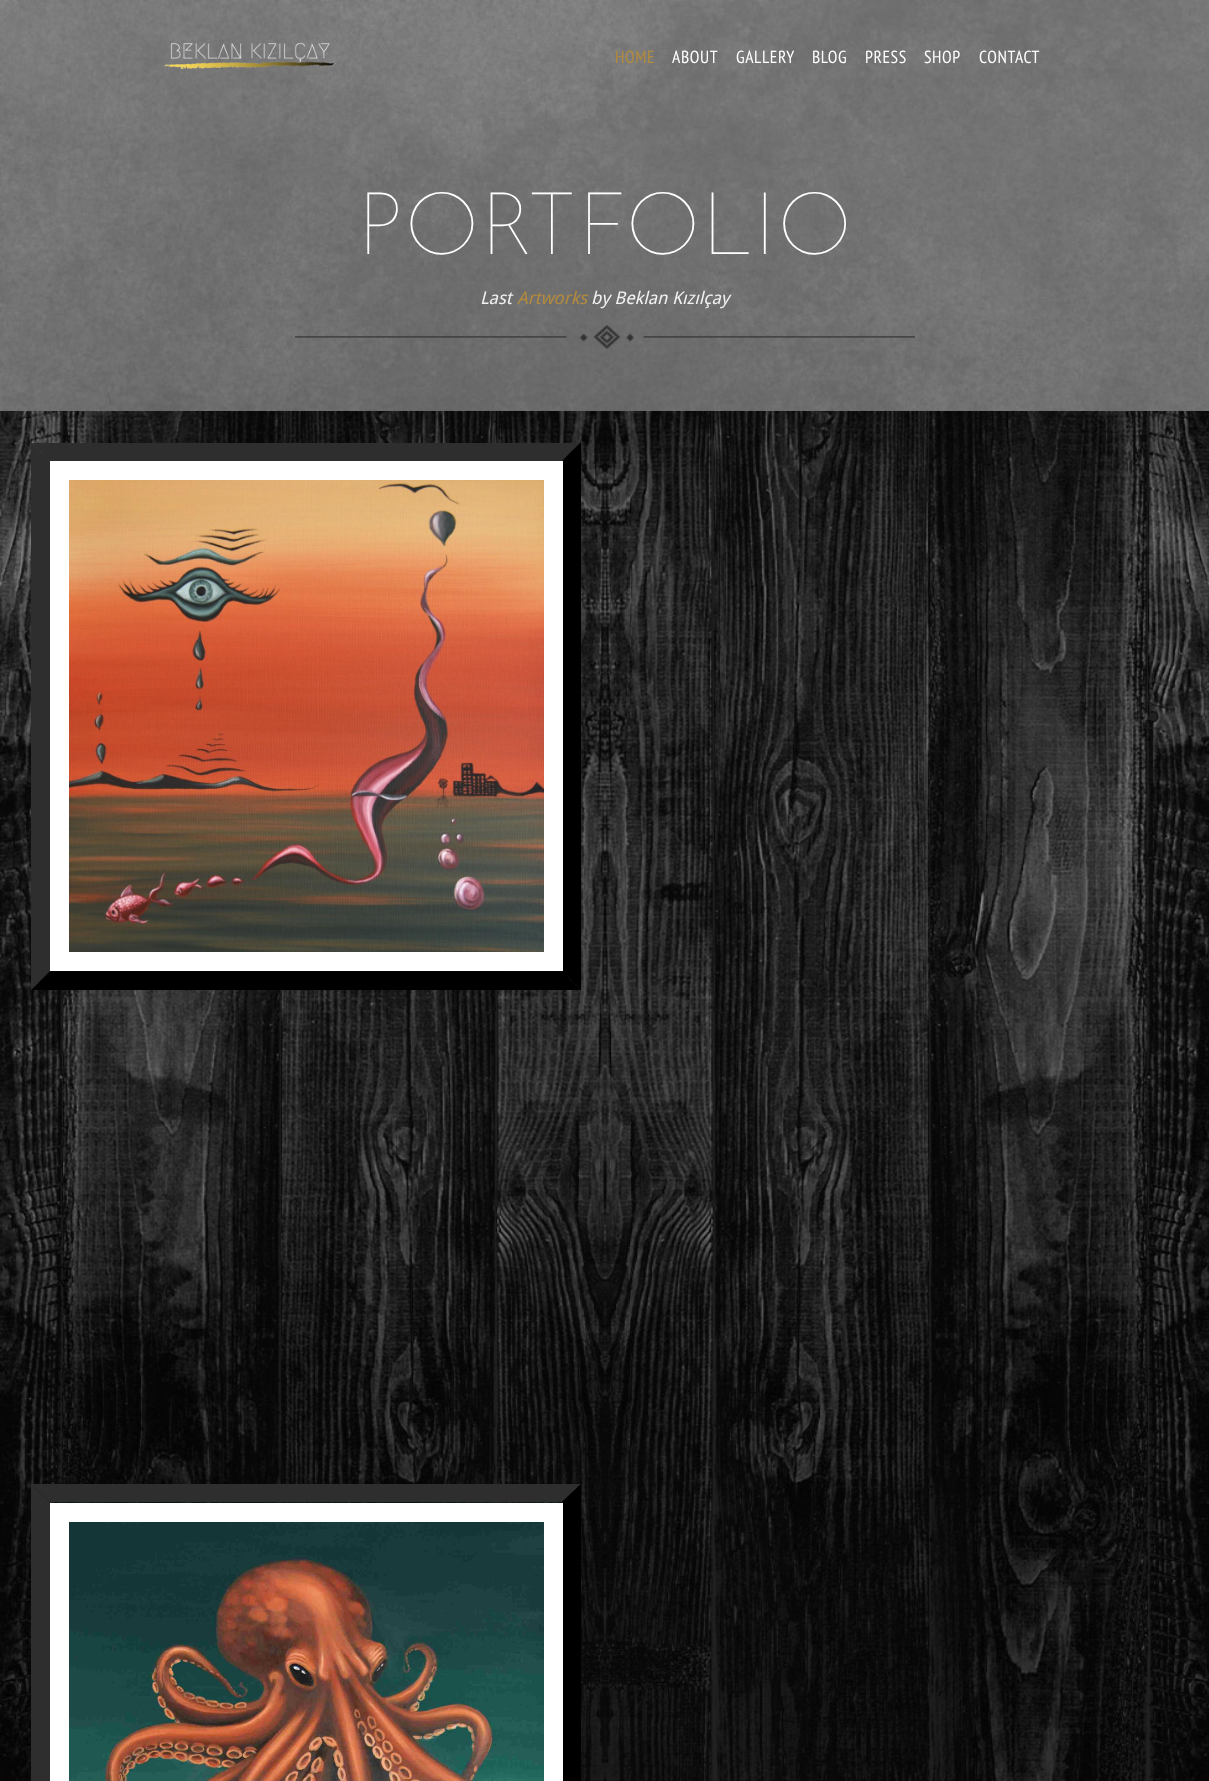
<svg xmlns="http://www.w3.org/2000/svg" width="1209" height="1781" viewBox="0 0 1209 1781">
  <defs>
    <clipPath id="clip1"><rect x="31" y="443" width="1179" height="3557"/></clipPath>
  </defs>
  <rect width="100%" height="100%" fill="rgb(255,255,255)"/>
  <image x="0" y="0" width="1209" height="411" href="pic1.png"/>
  <image x="162" y="42" width="174" height="28" href="pic2.png"/>
  <text x="615" y="63" font-family="PT Sans Narrow" font-size="17.5" letter-spacing="0.6" fill="rgb(180,139,60)">HOME</text>
  <g font-family="PT Sans Narrow" font-size="17.5" letter-spacing="0.6" fill="rgb(255,255,255)">
    <text x="672" y="63">ABOUT</text>
    <text x="736" y="63">GALLERY</text>
    <text x="812" y="63">BLOG</text>
    <text x="865" y="63">PRESS</text>
    <text x="924" y="63">SHOP</text>
    <text x="979" y="63">CONTACT</text>
  </g>
  <text x="357" y="254" font-family="Josefin Sans" font-size="87.5" font-weight="100" letter-spacing="0.6" fill="rgb(255,255,255)">PORTFOLIO</text>
  <text x="480" y="304" font-family="Droid Sans" font-size="17.5" font-style="italic" fill="rgb(241,241,241)">Last</text>
  <text x="517" y="304" font-family="Droid Sans" font-size="17.5" font-style="italic" fill="rgb(180,139,60)">Artworks</text>
  <text x="591" y="304" font-family="Droid Sans" font-size="17.5" font-style="italic" fill="rgb(241,241,241)">by Beklan Kızılçay</text>
  <image x="295" y="325" width="620" height="24" href="pic3.png"/>
  <image x="0" y="411" width="1209" height="1370" href="pic4.png"/>
  <g clip-path="url(#clip1)">
    <path d="M31 442H581L562 461H50Z" fill="rgb(46,46,46)"/>
  </g>
  <path d="M581 442V990L562 971V461Z" fill="rgb(0,0,0)"/>
  <path d="M581 990H31L50 971H562Z" fill="rgb(0,0,0)"/>
  <path d="M31 990V442L50 461V971Z" fill="rgb(46,46,46)"/>
  <image x="50" y="480" width="512" height="492" href="pic5.png"/>
  <rect x="59.5" y="470.5" width="494" height="491" fill="none" stroke="rgb(255,255,255)" stroke-width="19"/>
  <path d="M31 1484H581L562 1502H50Z" fill="rgb(46,46,46)"/>
  <path d="M581 1484V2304L562 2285V1502Z" fill="rgb(0,0,0)"/>
  <path d="M31 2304V1484L50 1502V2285Z" fill="rgb(46,46,46)"/>
  <image x="50" y="1502" width="513" height="279" href="pic6.png"/>
  <rect x="59.5" y="1512.5" width="494" height="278" fill="none" stroke="rgb(255,255,255)" stroke-width="19"/>
</svg>
